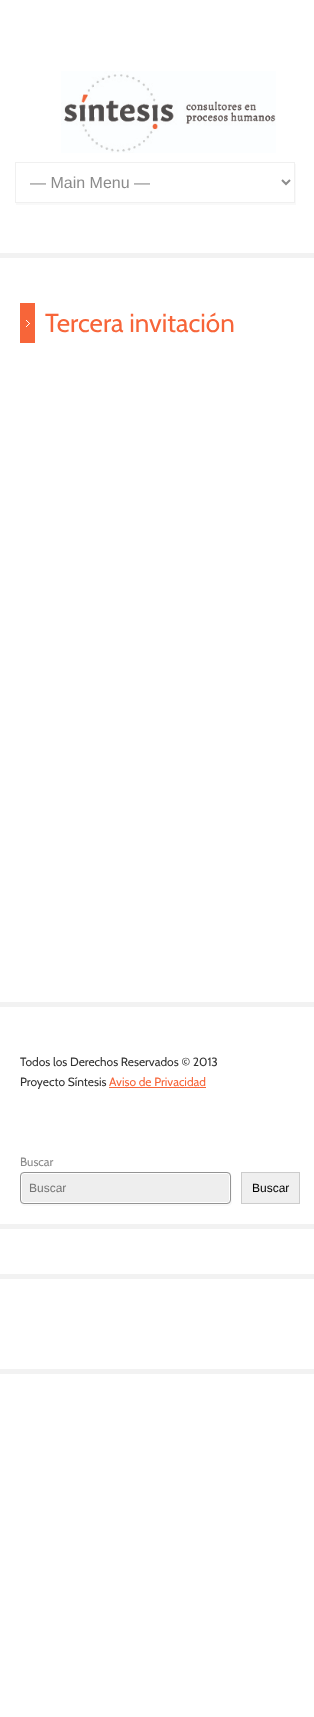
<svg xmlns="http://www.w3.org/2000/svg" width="314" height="1717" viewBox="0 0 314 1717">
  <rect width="100%" height="100%" fill="rgb(255,255,255)"/>
  <image x="61" y="71" width="215" height="82" href="pic1.png"/>
  <path d="M16 203V205H296V164H295V203Z" fill="rgb(249,249,249)"/>
  <rect x="15.5" y="162.5" width="279" height="40" fill="none" stroke="rgb(240,240,240)"/>
  <path d="M282 180L286 184L290 180" fill="none" stroke="rgb(140,140,140)" stroke-width="2"/>
  <text x="30" y="188" font-family="Liberation Sans" font-size="16" fill="rgb(139,139,139)">— Main Menu —</text>
  <rect x="0" y="253" width="314" height="5" fill="rgb(242,242,242)"/>
  <rect x="0" y="1002" width="314" height="5" fill="rgb(242,242,242)"/>
  <rect x="20" y="303" width="15" height="40" fill="rgb(247,101,57)"/>
  <image x="26" y="320" width="4" height="7" href="pic2.png"/>
  <text x="45" y="332" font-family="Cabin" font-size="26" fill="rgb(247,101,57)">Tercera invitación</text>
  <g font-family="Cabin" font-size="12" fill="rgb(51,51,51)">
    <text>
      <tspan x="20" y="1066">Todos los Derechos Reservados © 2013</tspan>
      <tspan x="20" y="1086">Proyecto Síntesis</tspan>
    </text>
  </g>
  <text x="109" y="1086" font-family="Cabin" font-size="12" fill="rgb(247,101,57)">Aviso de Privacidad</text>
  <rect x="109" y="1087" width="97" height="1" fill="rgb(247,101,57)"/>
  <rect x="0" y="1224" width="314" height="5" fill="rgb(242,242,242)"/>
  <text x="20" y="1166" font-family="Cabin" font-size="12" fill="rgb(139,139,139)">Buscar</text>
  <path d="M21 1203C21 1205 23 1206 25 1206H228C230 1206 232 1204 232 1202V1178C232 1177 232 1176 231 1175V1192C231 1195 233 1204 227 1204H24Z" fill="rgb(249,249,249)"/>
  <rect x="20" y="1172" width="211" height="32" rx="4" fill="rgb(238,238,238)"/>
  <rect x="21.5" y="1173.5" width="208" height="29" rx="2.5" fill="none" stroke="rgb(255,255,255)"/>
  <rect x="20.5" y="1172.5" width="210" height="31" rx="3.5" fill="none" stroke="rgb(148,148,148)"/>
  <text x="29" y="1192" font-family="Liberation Sans" font-size="12" fill="rgb(117,117,117)">Buscar</text>
  <rect x="241.5" y="1172.5" width="58" height="31" fill="rgb(239,239,239)" stroke="rgb(204,204,204)"/>
  <text x="252" y="1192" font-family="Liberation Sans" font-size="12" fill="rgb(0,0,0)">Buscar</text>
  <rect x="0" y="1369" width="314" height="5" fill="rgb(242,242,242)"/>
  <rect x="0" y="1274" width="314" height="5" fill="rgb(242,242,242)"/>
</svg>
